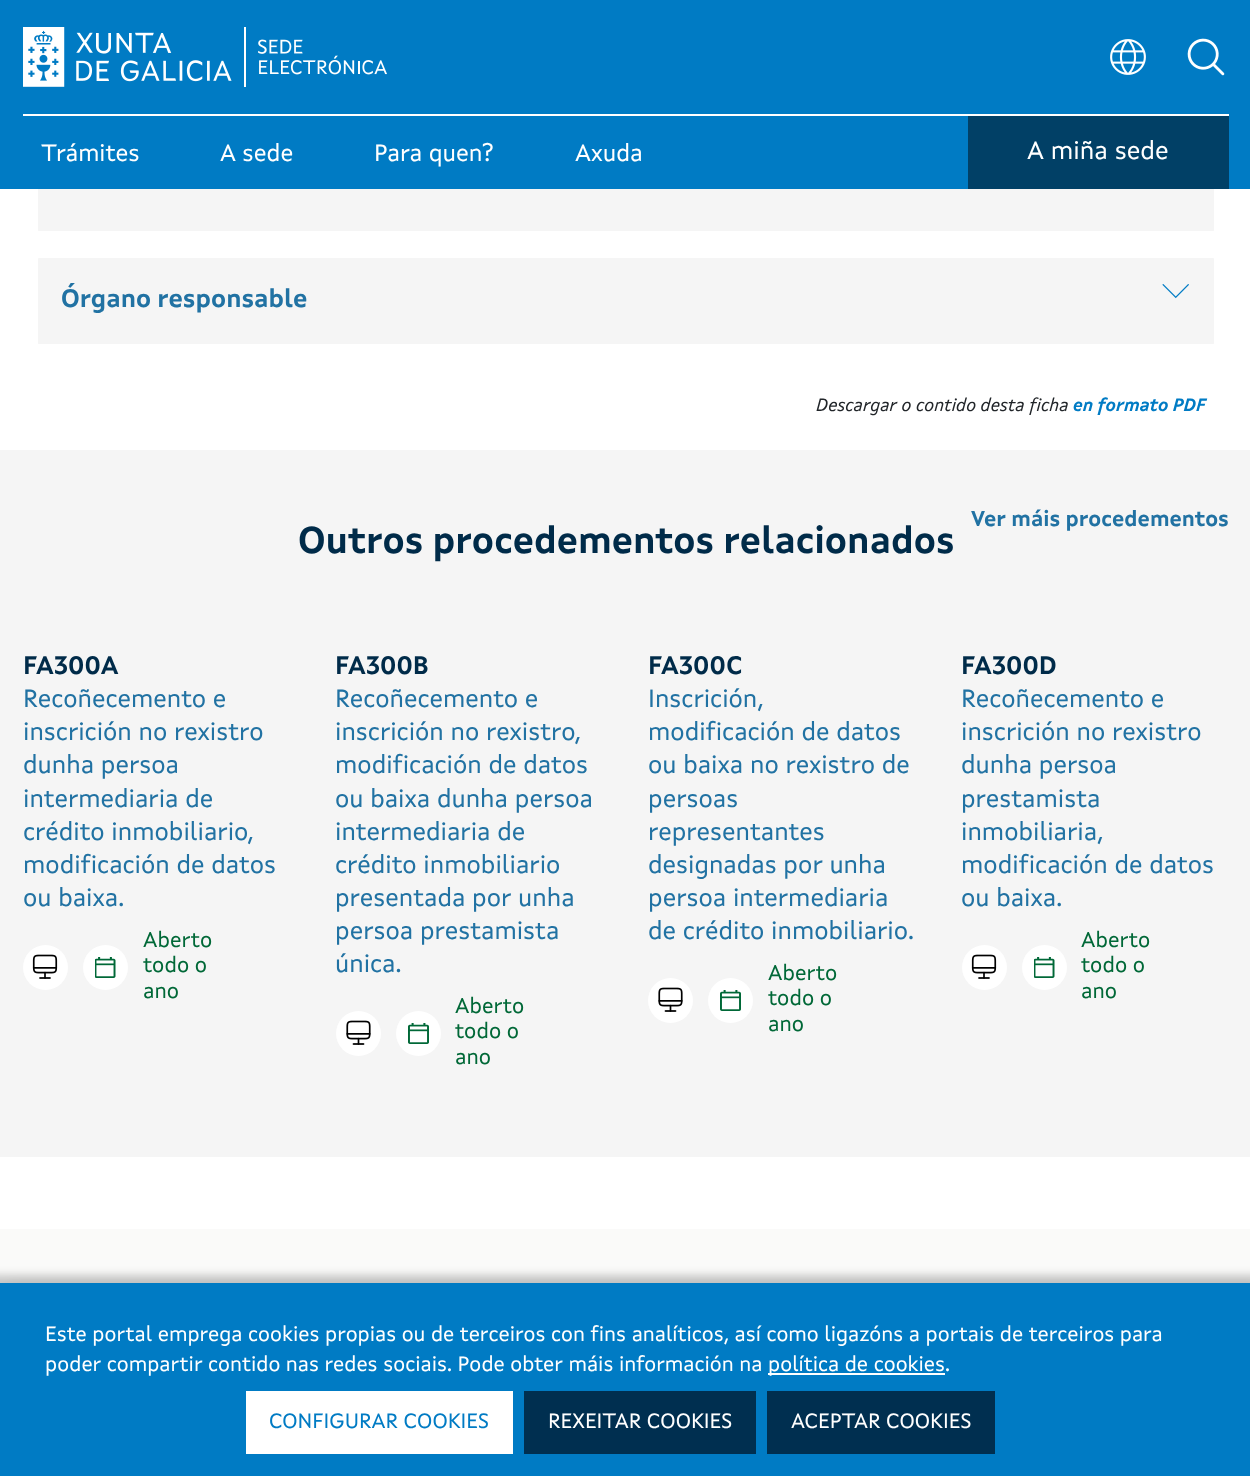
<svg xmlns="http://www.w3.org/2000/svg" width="1250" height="1476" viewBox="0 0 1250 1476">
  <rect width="100%" height="100%" fill="rgb(255,255,255)"/>
  <rect x="38" y="229" width="1176" height="2" fill="rgb(248,248,248)"/>
  <rect x="38" y="144" width="1176" height="87" rx="1.5" fill="rgb(245,245,245)"/>
  <rect x="0" y="0" width="1250" height="189" fill="rgb(0,123,196)"/>
  <image x="23" y="27" width="364" height="60" href="pic1.png"/>
  <image x="1110" y="39" width="36" height="36" href="pic2.png"/>
  <image x="1187" y="38" width="38" height="38" href="pic3.png"/>
  <rect x="23" y="114" width="1206" height="2" fill="rgb(255,255,255)"/>
  <g font-family="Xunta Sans" font-size="24" fill="rgb(255,255,255)">
    <text x="41" y="161">Trámites</text>
    <text x="220" y="161">A sede</text>
    <text x="374" y="161">Para quen?</text>
    <text x="575" y="161">Axuda</text>
  </g>
  <rect x="968" y="116" width="261" height="73" fill="rgb(1,64,102)"/>
  <text x="1027" y="159" font-family="Xunta Sans" font-size="25.5" fill="rgb(255,255,255)">A miña sede</text>
  <rect x="38" y="258" width="1176" height="86" fill="rgb(248,248,248)"/>
  <rect x="38" y="258" width="1176" height="86" rx="1.5" fill="rgb(245,245,245)"/>
  <text x="61" y="307" font-family="Xunta Sans" font-size="25.25" font-weight="bold" fill="rgb(33,114,163)">Órgano responsable</text>
  <image x="1162" y="284" width="27" height="15" href="pic4.png"/>
  <text x="816" y="411" font-family="Xunta Sans" font-size="18" font-style="italic" fill="rgb(33,37,41)">Descargar o contido desta ficha</text>
  <text x="1073" y="411" font-family="Xunta Sans" font-size="18" font-weight="bold" font-style="italic" fill="rgb(0,123,196)">en formato PDF</text>
  <rect x="0" y="450" width="1250" height="707" fill="rgb(245,245,245)"/>
  <text x="971" y="526" font-family="Xunta Sans" font-size="21.6" font-weight="bold" fill="rgb(33,114,163)">Ver máis procedementos</text>
  <text x="298" y="553" font-family="Xunta Sans" font-size="37.25" font-weight="bold" fill="rgb(0,43,73)">Outros procedementos relacionados</text>
  <text x="23" y="674" font-family="Xunta Sans" font-size="25.25" font-weight="bold" fill="rgb(0,43,73)">FA300A</text>
  <g font-family="Xunta Sans" font-size="25.25" fill="rgb(33,114,163)">
    <text>
      <tspan x="23" y="707">Recoñecemento e</tspan>
      <tspan x="23" y="740">inscrición no rexistro</tspan>
      <tspan x="23" y="773">dunha persoa</tspan>
      <tspan x="23" y="807">intermediaria de</tspan>
      <tspan x="23" y="840">crédito inmobiliario,</tspan>
      <tspan x="23" y="873">modificación de datos</tspan>
      <tspan x="23" y="906">ou baixa.</tspan>
    </text>
  </g>
  <circle cx="45.5" cy="967.5" r="22.5" fill="rgb(255,255,255)"/>
  <image x="32" y="954" width="26" height="25" href="pic5.png"/>
  <text x="143" y="947" font-family="Xunta Sans" font-size="21.6" fill="rgb(0,104,55)">Aberto</text>
  <circle cx="105.5" cy="967.5" r="22.5" fill="rgb(255,255,255)"/>
  <image x="95" y="957" width="21" height="21" href="pic6.png"/>
  <g font-family="Xunta Sans" font-size="21.6" fill="rgb(0,104,55)">
    <text>
      <tspan x="143" y="972">todo o</tspan>
      <tspan x="143" y="998">ano</tspan>
    </text>
  </g>
  <text x="335" y="674" font-family="Xunta Sans" font-size="25.25" font-weight="bold" fill="rgb(0,43,73)">FA300B</text>
  <g font-family="Xunta Sans" font-size="25.25" fill="rgb(33,114,163)">
    <text>
      <tspan x="335" y="707">Recoñecemento e</tspan>
      <tspan x="335" y="740">inscrición no rexistro,</tspan>
      <tspan x="335" y="773">modificación de datos</tspan>
      <tspan x="335" y="807">ou baixa dunha persoa</tspan>
      <tspan x="335" y="840">intermediaria de</tspan>
      <tspan x="335" y="873">crédito inmobiliario</tspan>
      <tspan x="335" y="906">presentada por unha</tspan>
      <tspan x="335" y="939">persoa prestamista</tspan>
      <tspan x="335" y="972">única.</tspan>
    </text>
  </g>
  <circle cx="358.5" cy="1033.5" r="22.5" fill="rgb(255,255,255)"/>
  <image x="346" y="1020" width="25" height="25" href="pic7.png"/>
  <text x="455" y="1013" font-family="Xunta Sans" font-size="21.6" fill="rgb(0,104,55)">Aberto</text>
  <circle cx="418.5" cy="1033.5" r="22.5" fill="rgb(255,255,255)"/>
  <image x="408" y="1023" width="21" height="21" href="pic8.png"/>
  <g font-family="Xunta Sans" font-size="21.6" fill="rgb(0,104,55)">
    <text>
      <tspan x="455" y="1038">todo o</tspan>
      <tspan x="455" y="1064">ano</tspan>
    </text>
  </g>
  <text x="648" y="674" font-family="Xunta Sans" font-size="25.25" font-weight="bold" fill="rgb(0,43,73)">FA300C</text>
  <g font-family="Xunta Sans" font-size="25.25" fill="rgb(33,114,163)">
    <text>
      <tspan x="648" y="707">Inscrición,</tspan>
      <tspan x="648" y="740">modificación de datos</tspan>
      <tspan x="648" y="773">ou baixa no rexistro de</tspan>
      <tspan x="648" y="807">persoas</tspan>
      <tspan x="648" y="840">representantes</tspan>
      <tspan x="648" y="873">designadas por unha</tspan>
      <tspan x="648" y="906">persoa intermediaria</tspan>
      <tspan x="648" y="939">de crédito inmobiliario.</tspan>
    </text>
  </g>
  <circle cx="670.5" cy="1000.5" r="22.5" fill="rgb(255,255,255)"/>
  <image x="658" y="987" width="25" height="25" href="pic7.png"/>
  <text x="768" y="980" font-family="Xunta Sans" font-size="21.6" fill="rgb(0,104,55)">Aberto</text>
  <circle cx="730.5" cy="1000.5" r="22.5" fill="rgb(255,255,255)"/>
  <image x="720" y="990" width="21" height="21" href="pic8.png"/>
  <g font-family="Xunta Sans" font-size="21.6" fill="rgb(0,104,55)">
    <text>
      <tspan x="768" y="1005">todo o</tspan>
      <tspan x="768" y="1031">ano</tspan>
    </text>
  </g>
  <text x="961" y="674" font-family="Xunta Sans" font-size="25.25" font-weight="bold" fill="rgb(0,43,73)">FA300D</text>
  <g font-family="Xunta Sans" font-size="25.25" fill="rgb(33,114,163)">
    <text>
      <tspan x="961" y="707">Recoñecemento e</tspan>
      <tspan x="961" y="740">inscrición no rexistro</tspan>
      <tspan x="961" y="773">dunha persoa</tspan>
      <tspan x="961" y="807">prestamista</tspan>
      <tspan x="961" y="840">inmobiliaria,</tspan>
      <tspan x="961" y="873">modificación de datos</tspan>
      <tspan x="961" y="906">ou baixa.</tspan>
    </text>
  </g>
  <circle cx="984.5" cy="967.5" r="22.5" fill="rgb(255,255,255)"/>
  <image x="971" y="954" width="26" height="25" href="pic5.png"/>
  <text x="1081" y="947" font-family="Xunta Sans" font-size="21.6" fill="rgb(0,104,55)">Aberto</text>
  <circle cx="1044.5" cy="967.5" r="22.5" fill="rgb(255,255,255)"/>
  <image x="1034" y="957" width="21" height="21" href="pic6.png"/>
  <g font-family="Xunta Sans" font-size="21.6" fill="rgb(0,104,55)">
    <text>
      <tspan x="1081" y="972">todo o</tspan>
      <tspan x="1081" y="998">ano</tspan>
    </text>
  </g>
  <rect x="0" y="1229" width="1250" height="54" fill="rgb(250,250,249)"/>
  <rect x="8" y="1290" width="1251" height="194" fill="rgba(0,0,0,0.19)" filter="blur(7.5px)"/>
  <rect x="-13" y="1275" width="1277" height="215" fill="rgba(0,0,0,0.2)" filter="blur(4.5px)"/>
  <rect x="0" y="1283" width="1250" height="193" fill="rgb(0,123,196)"/>
  <g font-family="Xunta Sans" font-size="21" fill="rgb(255,255,255)">
    <text>
      <tspan x="45" y="1341">Este portal emprega cookies propias ou de terceiros con fins analíticos, así como ligazóns a portais de terceiros para</tspan>
      <tspan x="45" y="1371">poder compartir contido nas redes sociais. Pode obter máis información na</tspan>
    </text>
  </g>
  <rect x="768" y="1373" width="177" height="2" fill="rgb(255,255,255)"/>
  <text x="768" y="1371" font-family="Xunta Sans" font-size="21" fill="rgb(255,255,255)">política de cookies.</text>
  <rect x="246" y="1391" width="267" height="63" fill="rgb(255,255,255)"/>
  <text x="269" y="1428" font-family="Xunta Sans" font-size="21" fill="rgb(0,123,196)">CONFIGURAR COOKIES</text>
  <rect x="524" y="1391" width="232" height="63" fill="rgb(0,47,80)"/>
  <text x="548" y="1428" font-family="Xunta Sans" font-size="21" fill="rgb(255,255,255)">REXEITAR COOKIES</text>
  <rect x="767" y="1391" width="228" height="63" fill="rgb(0,47,80)"/>
  <text x="791" y="1428" font-family="Xunta Sans" font-size="21" fill="rgb(255,255,255)">ACEPTAR COOKIES</text>
</svg>
